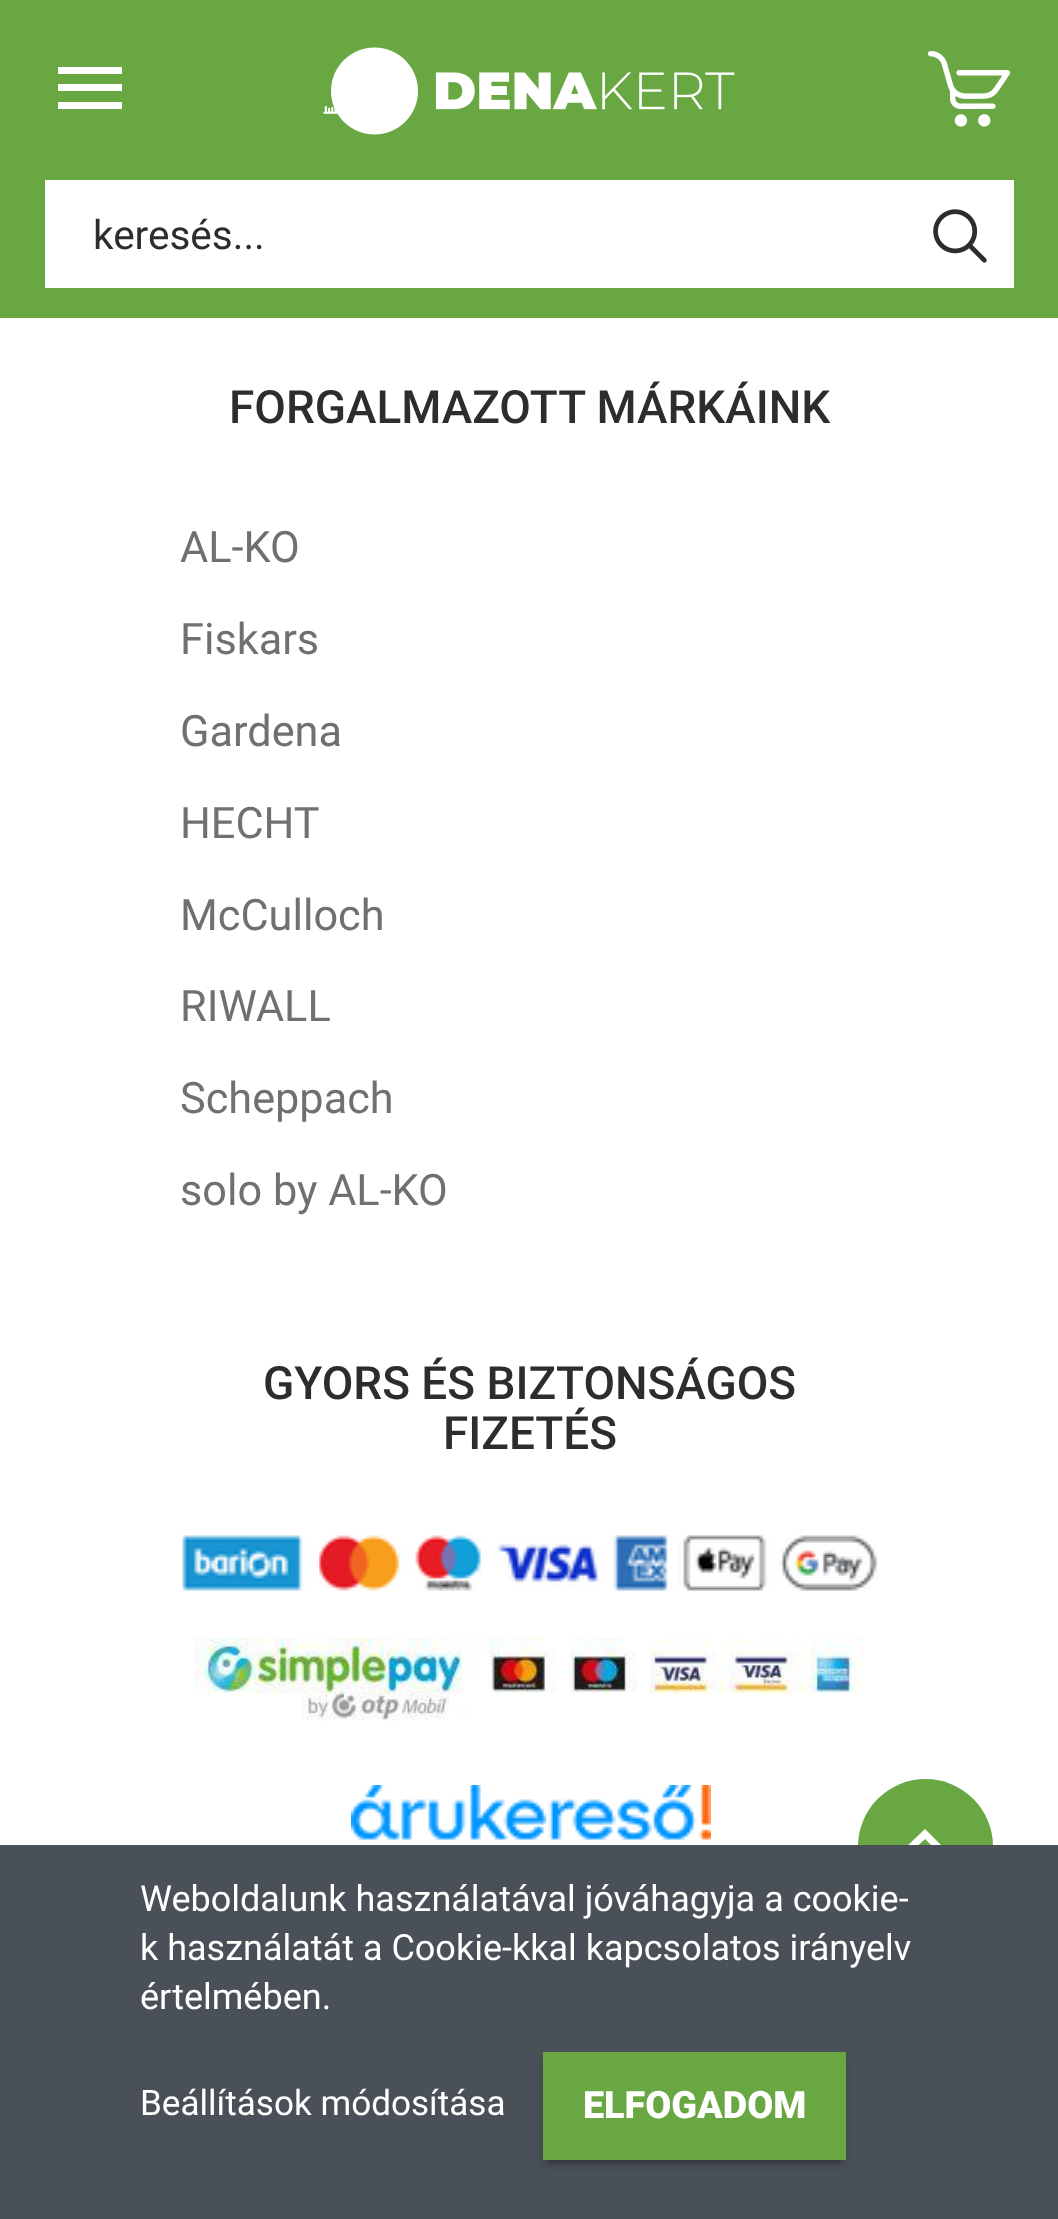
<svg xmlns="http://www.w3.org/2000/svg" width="1058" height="2219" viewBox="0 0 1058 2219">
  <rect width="100%" height="100%" fill="rgb(255,255,255)"/>
  <rect x="0" y="0" width="1058" height="318" fill="rgb(105,167,66)"/>
  <path d="M58 109H122V102H58ZM58 91H122V84H58ZM58 67V74H122V67Z" fill="rgb(255,255,255)"/>
  <image x="323" y="47" width="412" height="88" href="pic1.png"/>
  <image x="927" y="51" width="84" height="76" href="pic2.png"/>
  <rect x="45" y="180" width="969" height="108" fill="rgb(255,255,255)"/>
  <text x="93" y="249" font-family="Roboto" font-size="40.5" fill="rgb(45,45,45)">keresés...</text>
  <image x="933" y="209" width="54" height="54" href="pic3.png"/>
  <text x="229" y="423" font-family="Roboto" font-size="45.9" font-weight="500" fill="rgb(45,45,45)">FORGALMAZOTT MÁRKÁINK</text>
  <g font-family="Roboto" font-size="43.25" fill="rgb(112,112,112)">
    <text x="180" y="562">AL-KO</text>
    <text x="180" y="654">Fiskars</text>
    <text x="180" y="746">Gardena</text>
    <text x="180" y="838">HECHT</text>
    <text x="180" y="930">McCulloch</text>
    <text x="180" y="1021">RIWALL</text>
    <text x="180" y="1113">Scheppach</text>
    <text x="180" y="1205">solo by AL-KO</text>
  </g>
  <g font-family="Roboto" font-size="45.9" font-weight="500" fill="rgb(45,45,45)">
    <text x="263" y="1399">GYORS ÉS BIZTONSÁGOS</text>
    <text x="443" y="1449">FIZETÉS</text>
  </g>
  <image x="182" y="1535" width="696" height="56" href="pic4.png"/>
  <image x="195" y="1638" width="669" height="83" href="pic5.png"/>
  <image x="351" y="1785" width="360" height="55" href="pic6.png"/>
  <circle cx="925.5" cy="1846.5" r="67.5" fill="rgb(105,167,66)"/>
  <path d="M903 1850L908 1855L925 1839L941 1855L946 1850L925 1829Z" fill="rgb(255,255,255)"/>
  <rect x="0" y="1845" width="1058" height="374" fill="rgb(73,80,87)"/>
  <g font-family="Roboto" font-size="36" fill="rgb(255,255,255)">
    <text>
      <tspan x="140" y="1911">Weboldalunk használatával jóváhagyja a cookie-</tspan>
      <tspan x="140" y="1960">k használatát a Cookie-kkal kapcsolatos irányelv</tspan>
      <tspan x="140" y="2009">értelmében.</tspan>
    </text>
  </g>
  <text x="140" y="2115" font-family="Roboto" font-size="35.1" fill="rgb(255,255,255)">Beállítások módosítása</text>
  <rect x="549" y="2067" width="291" height="96" fill="rgba(0,0,0,0.2)" filter="blur(1.5px)"/>
  <rect x="543" y="2058" width="303" height="108" fill="rgba(0,0,0,0.14)" filter="blur(3px)"/>
  <rect x="543" y="2052" width="303" height="108" fill="rgb(105,167,66)"/>
  <text x="583" y="2118" font-family="Roboto" font-size="37.75" font-weight="900" fill="rgb(255,255,255)">ELFOGADOM</text>
</svg>
